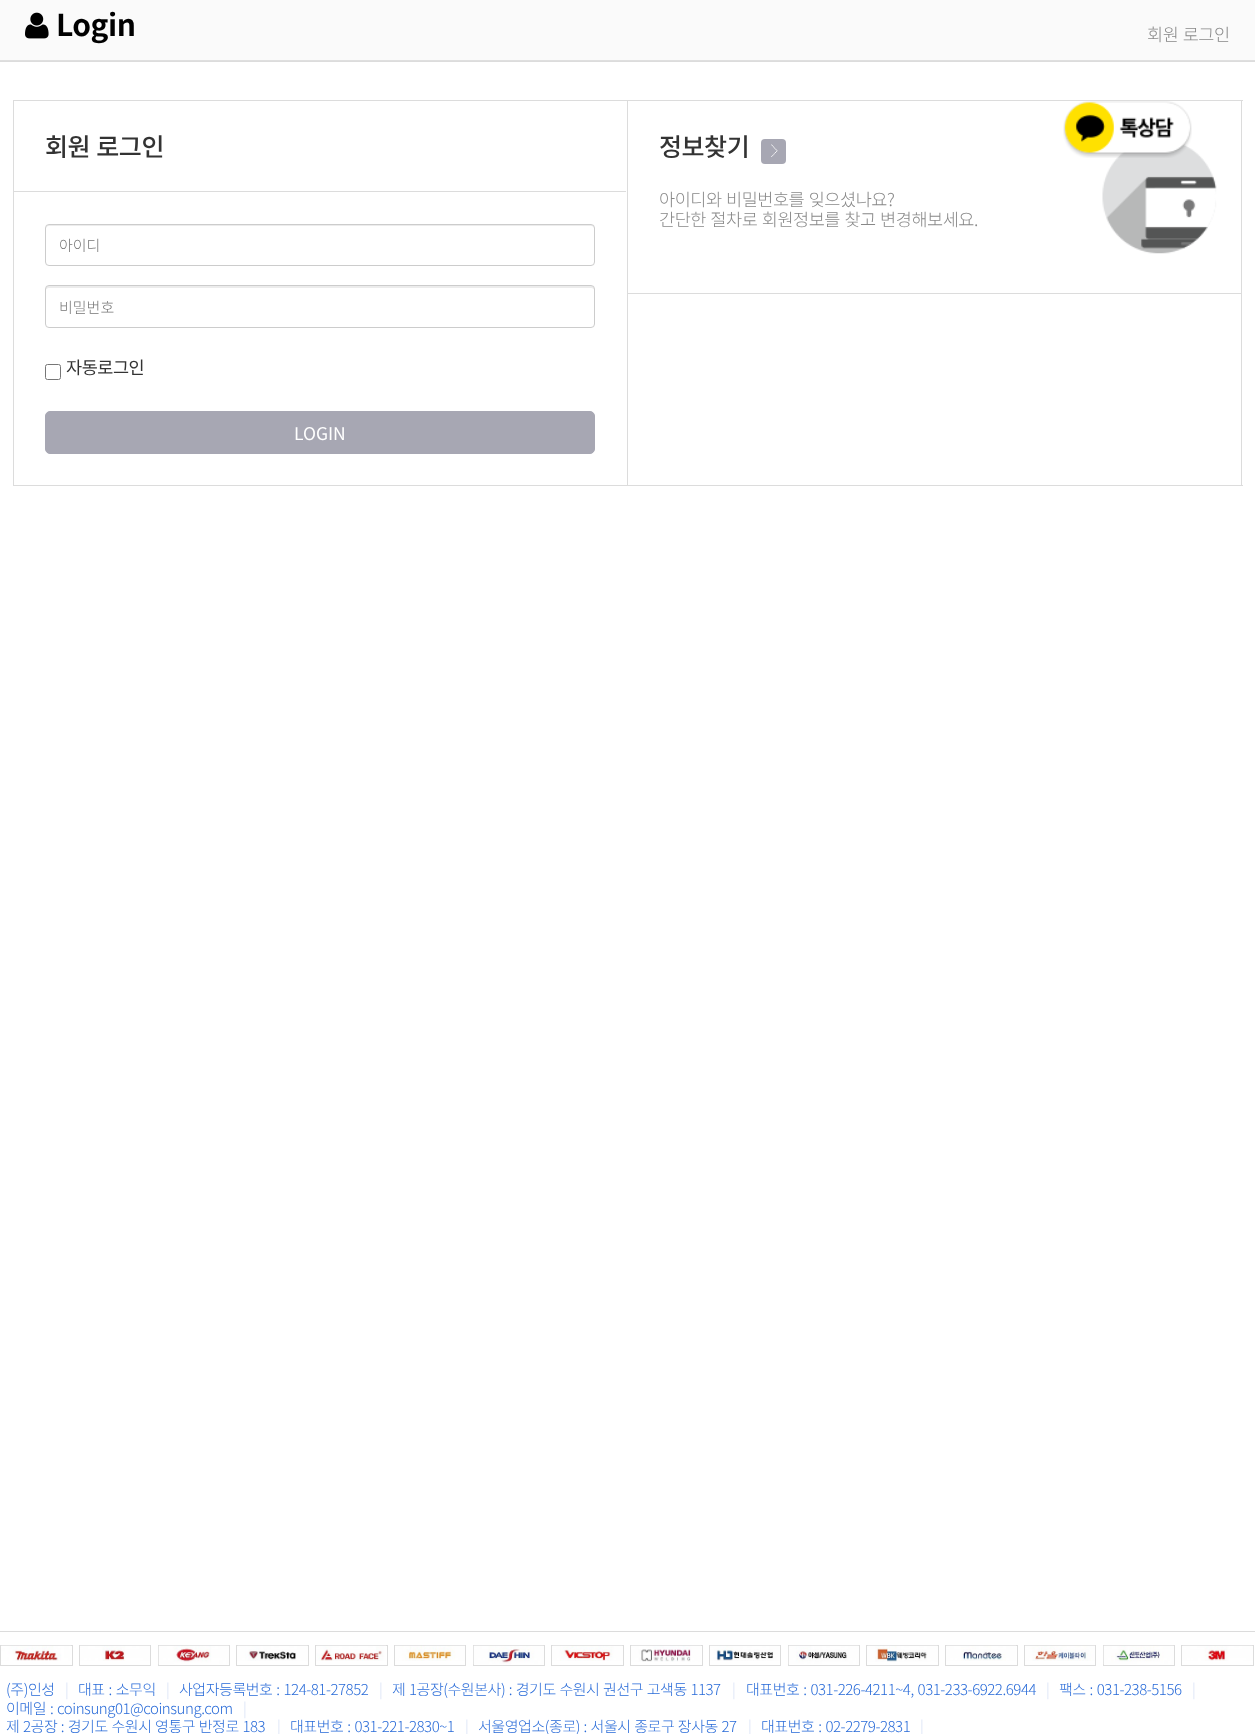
<svg xmlns="http://www.w3.org/2000/svg" width="1255" height="1734" viewBox="0 0 1255 1734">
  <rect width="100%" height="100%" fill="rgb(255,255,255)"/>
  <rect x="0" y="0" width="1255" height="60" fill="rgb(250,250,250)"/>
  <rect x="0" y="60" width="1255" height="1" fill="rgb(223,223,223)"/>
  <image x="25" y="12" width="24" height="27" href="pic1.png"/>
  <text x="56" y="36" font-family="Noto Sans KR" font-size="30" font-weight="bold" letter-spacing="-0.45" fill="rgb(0,0,0)">Login</text>
  <text x="1147" y="41" word-spacing="1" font-family="Noto Sans KR" font-size="17.5" font-weight="300" letter-spacing="-0.45" fill="rgb(136,136,136)">회원 로그인</text>
  <rect x="0" y="61" width="1255" height="1" fill="rgb(220,220,220)"/>
  <rect x="13.5" y="100.5" width="614" height="385" fill="none" stroke="rgb(220,220,220)"/>
  <rect x="14" y="191" width="612" height="1" fill="rgb(220,220,220)"/>
  <text x="45" y="156" word-spacing="1" font-family="Noto Sans KR" font-size="25" font-weight="500" letter-spacing="-0.45" fill="rgb(51,51,51)">회원 로그인</text>
  <path d="M49 226H591C593 226 594 227 594 229V228C594 226 593 225 592 225H48C47 225 46 226 46 228V229C46 227 47 226 49 226Z" fill="rgb(236,236,236)"/>
  <rect x="45.5" y="224.5" width="549" height="41" rx="3.5" fill="none" stroke="rgb(204,204,204)"/>
  <text x="59" y="251" font-family="Noto Sans KR" font-size="15" font-weight="300" fill="rgb(119,119,119)">아이디</text>
  <path d="M49 288H591C593 288 594 289 594 290V288C594 287 593 286 592 286H48C47 286 46 287 46 288V290C46 289 47 288 49 288Z" fill="rgb(236,236,236)"/>
  <rect x="45.5" y="285.5" width="549" height="42" rx="3.5" fill="none" stroke="rgb(204,204,204)"/>
  <text x="59" y="313" font-family="Noto Sans KR" font-size="15" font-weight="300" fill="rgb(119,119,119)">비밀번호</text>
  <rect x="45.5" y="364.5" width="15" height="15" rx="2" fill="none" stroke="rgb(118,118,118)"/>
  <text x="66" y="374" font-family="Noto Sans KR" font-size="17.5" letter-spacing="-0.45" fill="rgb(51,51,51)">자동로그인</text>
  <rect x="45.5" y="411.5" width="549" height="42" rx="4.5" fill="rgb(167,167,179)" stroke="rgb(167,167,179)"/>
  <text x="294" y="440" font-family="Noto Sans KR" font-size="17.5" fill="rgb(255,255,255)">LOGIN</text>
  <rect x="628" y="100" width="615" height="1" fill="rgb(220,220,220)"/>
  <rect x="1241" y="100" width="1" height="386" fill="rgb(220,220,220)"/>
  <rect x="628" y="485" width="615" height="1" fill="rgb(220,220,220)"/>
  <image x="1102" y="143" width="115" height="111" href="pic2.png"/>
  <rect x="628" y="293" width="613" height="1" fill="rgb(220,220,220)"/>
  <text x="659" y="156" font-family="Noto Sans KR" font-size="25" font-weight="500" letter-spacing="-0.45" fill="rgb(51,51,51)">정보찾기</text>
  <rect x="761" y="139" width="25" height="25" rx="4" fill="rgb(167,167,179)"/>
  <image x="771" y="144" width="7" height="13" href="pic3.png"/>
  <g font-family="Noto Sans KR" font-size="17.5" font-weight="300" letter-spacing="-0.45" fill="rgb(136,136,136)">
    <text>
      <tspan x="659" y="206" word-spacing="1">아이디와 비밀번호를 잊으셨나요?</tspan>
      <tspan x="659" y="226" word-spacing="1">간단한 절차로 회원정보를 찾고 변경해보세요.</tspan>
    </text>
  </g>
  <image x="1063" y="101" width="129" height="57" href="pic4.png"/>
  <rect x="0" y="1631" width="1255" height="1" fill="rgb(220,220,220)"/>
  <rect x="0.5" y="1645.5" width="72" height="20" fill="none" stroke="rgb(220,220,220)"/>
  <image x="1" y="1645" width="70" height="16" href="pic5.png"/>
  <rect x="79.5" y="1645.5" width="71" height="20" fill="none" stroke="rgb(220,220,220)"/>
  <image x="80" y="1645" width="70" height="16" href="pic6.png"/>
  <rect x="158.5" y="1645.5" width="71" height="20" fill="none" stroke="rgb(220,220,220)"/>
  <image x="158" y="1645" width="71" height="20" href="pic7.png"/>
  <rect x="236.5" y="1645.5" width="72" height="20" fill="none" stroke="rgb(220,220,220)"/>
  <image x="237" y="1645" width="71" height="16" href="pic8.png"/>
  <rect x="315.5" y="1645.5" width="72" height="20" fill="none" stroke="rgb(220,220,220)"/>
  <image x="316" y="1645" width="70" height="16" href="pic9.png"/>
  <rect x="394.5" y="1645.5" width="71" height="20" fill="none" stroke="rgb(220,220,220)"/>
  <image x="395" y="1645" width="70" height="16" href="pic10.png"/>
  <rect x="473.5" y="1645.5" width="71" height="20" fill="none" stroke="rgb(220,220,220)"/>
  <image x="473" y="1645" width="71" height="20" href="pic11.png"/>
  <rect x="551.5" y="1645.5" width="72" height="20" fill="none" stroke="rgb(220,220,220)"/>
  <image x="552" y="1645" width="71" height="16" href="pic12.png"/>
  <rect x="630.5" y="1645.5" width="72" height="20" fill="none" stroke="rgb(220,220,220)"/>
  <image x="631" y="1645" width="70" height="17" href="pic13.png"/>
  <rect x="709.5" y="1645.5" width="71" height="20" fill="none" stroke="rgb(220,220,220)"/>
  <image x="710" y="1645" width="70" height="16" href="pic14.png"/>
  <rect x="788.5" y="1645.5" width="71" height="20" fill="none" stroke="rgb(220,220,220)"/>
  <image x="788" y="1645" width="71" height="20" href="pic15.png"/>
  <rect x="866.5" y="1645.5" width="72" height="20" fill="none" stroke="rgb(220,220,220)"/>
  <image x="867" y="1645" width="71" height="17" href="pic16.png"/>
  <rect x="945.5" y="1645.5" width="72" height="20" fill="none" stroke="rgb(220,220,220)"/>
  <image x="946" y="1645" width="70" height="16" href="pic17.png"/>
  <rect x="1024.5" y="1645.5" width="71" height="20" fill="none" stroke="rgb(220,220,220)"/>
  <image x="1025" y="1645" width="70" height="16" href="pic18.png"/>
  <rect x="1103.5" y="1645.5" width="71" height="20" fill="none" stroke="rgb(220,220,220)"/>
  <image x="1103" y="1645" width="71" height="20" href="pic19.png"/>
  <rect x="1181.5" y="1645.5" width="72" height="20" fill="none" stroke="rgb(220,220,220)"/>
  <image x="1182" y="1645" width="71" height="16" href="pic20.png"/>
  <text x="6" y="1695" font-family="Noto Sans KR" font-size="15" font-weight="300" letter-spacing="-0.45" fill="rgb(41,107,216)">(주)인성</text>
  <text x="65" y="1695" font-family="Noto Sans KR" font-size="15" font-weight="300" letter-spacing="-0.45" fill="rgb(213,222,245)">|</text>
  <text x="78" y="1695" word-spacing="1" font-family="Noto Sans KR" font-size="15" font-weight="300" letter-spacing="-0.45" fill="rgb(41,107,216)">대표 : 소무익</text>
  <text x="166" y="1695" font-family="Noto Sans KR" font-size="15" font-weight="300" letter-spacing="-0.45" fill="rgb(213,222,245)">|</text>
  <text x="179" y="1695" word-spacing="1" font-family="Noto Sans KR" font-size="15" font-weight="300" letter-spacing="-0.45" fill="rgb(41,107,216)">사업자등록번호 : 124-81-27852</text>
  <text x="379" y="1695" font-family="Noto Sans KR" font-size="15" font-weight="300" letter-spacing="-0.45" fill="rgb(213,222,245)">|</text>
  <text x="392" y="1695" word-spacing="0.75" font-family="Noto Sans KR" font-size="15" font-weight="300" letter-spacing="-0.45" fill="rgb(41,107,216)">제 1공장(수원본사) : 경기도 수원시 권선구 고색동 1137</text>
  <text x="732" y="1695" font-family="Noto Sans KR" font-size="15" font-weight="300" letter-spacing="-0.45" fill="rgb(213,222,245)">|</text>
  <text x="746" y="1695" word-spacing="1" font-family="Noto Sans KR" font-size="15" font-weight="300" letter-spacing="-0.45" fill="rgb(41,107,216)">대표번호 : 031-226-4211~4, 031-233-6922.6944</text>
  <text x="1046" y="1695" font-family="Noto Sans KR" font-size="15" font-weight="300" letter-spacing="-0.45" fill="rgb(213,222,245)">|</text>
  <text x="1059" y="1695" word-spacing="1" font-family="Noto Sans KR" font-size="15" font-weight="300" letter-spacing="-0.45" fill="rgb(41,107,216)">팩스 : 031-238-5156</text>
  <text x="1192" y="1695" font-family="Noto Sans KR" font-size="15" font-weight="300" letter-spacing="-0.45" fill="rgb(213,222,245)">|</text>
  <text x="6" y="1714" word-spacing="1" font-family="Noto Sans KR" font-size="15" font-weight="300" letter-spacing="-0.45" fill="rgb(41,107,216)">이메일 : coinsung01@coinsung.com</text>
  <text x="243" y="1714" font-family="Noto Sans KR" font-size="15" font-weight="300" letter-spacing="-0.45" fill="rgb(213,222,245)">|</text>
  <text x="6" y="1732" word-spacing="0.75" font-family="Noto Sans KR" font-size="15" font-weight="300" letter-spacing="-0.45" fill="rgb(41,107,216)">제 2공장 : 경기도 수원시 영통구 반정로 183</text>
  <text x="277" y="1732" font-family="Noto Sans KR" font-size="15" font-weight="300" letter-spacing="-0.45" fill="rgb(213,222,245)">|</text>
  <text x="290" y="1732" word-spacing="1" font-family="Noto Sans KR" font-size="15" font-weight="300" letter-spacing="-0.45" fill="rgb(41,107,216)">대표번호 : 031-221-2830~1</text>
  <text x="465" y="1732" font-family="Noto Sans KR" font-size="15" font-weight="300" letter-spacing="-0.45" fill="rgb(213,222,245)">|</text>
  <text x="478" y="1732" word-spacing="0.75" font-family="Noto Sans KR" font-size="15" font-weight="300" letter-spacing="-0.45" fill="rgb(41,107,216)">서울영업소(종로) : 서울시 종로구 장사동 27</text>
  <text x="748" y="1732" font-family="Noto Sans KR" font-size="15" font-weight="300" letter-spacing="-0.45" fill="rgb(213,222,245)">|</text>
  <text x="761" y="1732" word-spacing="1" font-family="Noto Sans KR" font-size="15" font-weight="300" letter-spacing="-0.45" fill="rgb(41,107,216)">대표번호 : 02-2279-2831</text>
  <text x="920" y="1732" font-family="Noto Sans KR" font-size="15" font-weight="300" letter-spacing="-0.45" fill="rgb(213,222,245)">|</text>
</svg>
